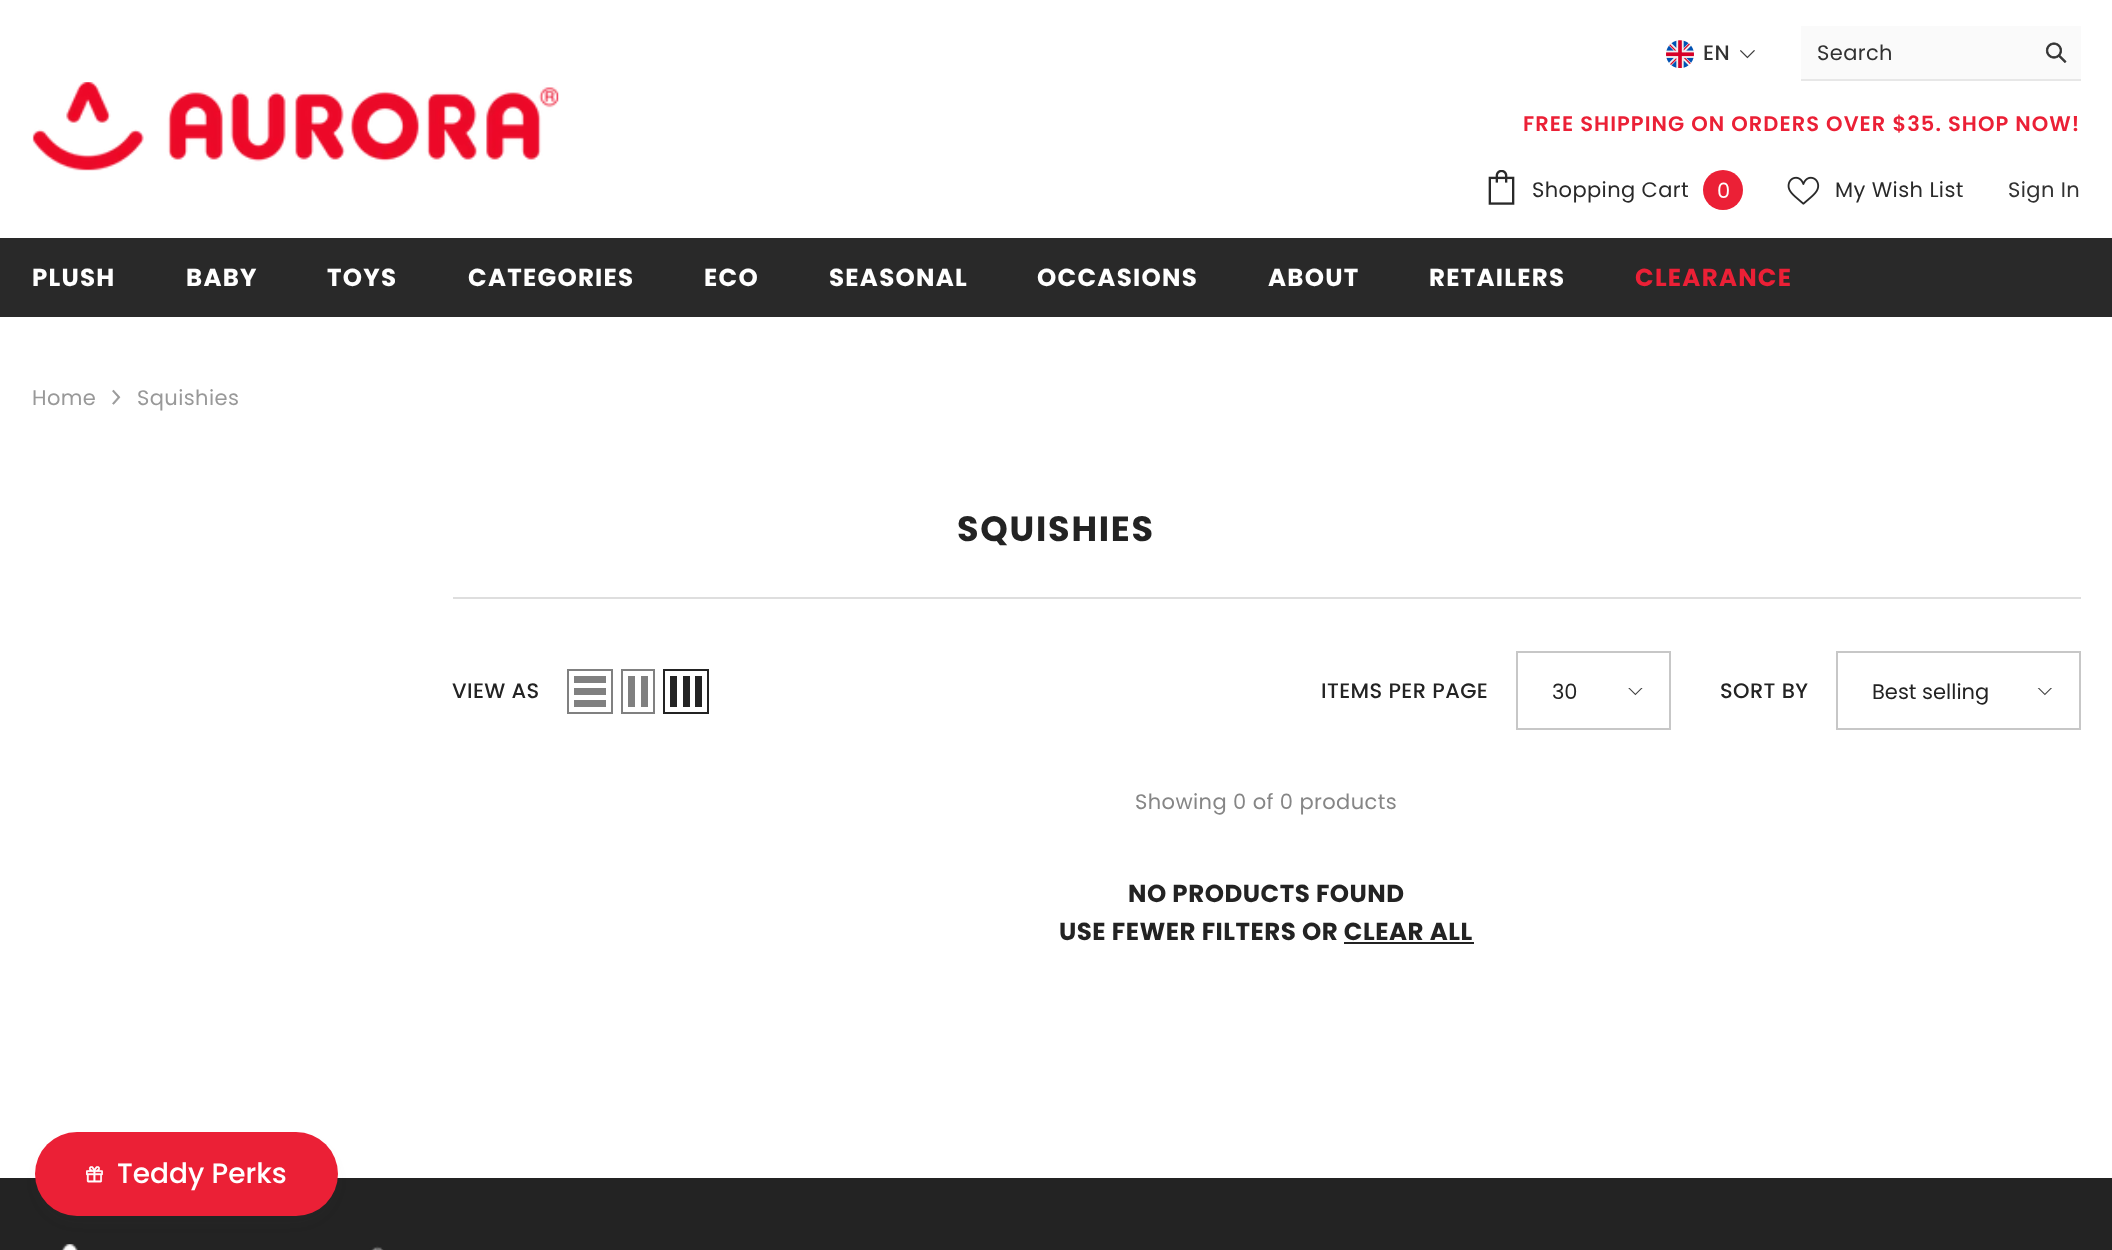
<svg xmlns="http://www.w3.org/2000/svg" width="2112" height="1250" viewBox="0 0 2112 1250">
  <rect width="100%" height="100%" fill="rgb(255,255,255)"/>
  <image x="1666" y="40" width="28" height="28" href="pic1.png"/>
  <text x="1703" y="60" font-family="Poppins" font-size="21" font-weight="500" letter-spacing="0.4" fill="rgb(50,50,50)">EN</text>
  <image x="1740" y="50" width="15" height="9" href="pic2.png"/>
  <rect x="1801" y="26" width="280" height="53" fill="rgb(250,250,250)"/>
  <rect x="1801" y="79" width="280" height="2" fill="rgb(231,231,231)"/>
  <text x="1817" y="60" font-family="Poppins" font-size="21" letter-spacing="0.4" fill="rgb(50,50,50)">Search</text>
  <image x="2045" y="42" width="22" height="21" href="pic3.png"/>
  <image x="32" y="82" width="527" height="89" href="pic4.png"/>
  <text x="1523" y="131" font-family="Poppins" font-size="21" font-weight="600" letter-spacing="1.05" fill="rgb(235,32,54)">FREE SHIPPING ON ORDERS OVER $35. SHOP NOW!</text>
  <image x="1488" y="170" width="27" height="35" href="pic5.png"/>
  <text x="1532" y="197" font-family="Poppins" font-size="21" letter-spacing="0.4" fill="rgb(41,41,41)">Shopping Cart</text>
  <circle cx="1723" cy="190" r="20" fill="rgb(235,32,54)"/>
  <text x="1717" y="198" font-family="Poppins" font-size="21" fill="rgb(255,255,255)">0</text>
  <image x="1787" y="176" width="33" height="29" href="pic6.png"/>
  <text x="1835" y="197" font-family="Poppins" font-size="21" letter-spacing="0.4" fill="rgb(41,41,41)">My Wish List</text>
  <text x="2008" y="197" font-family="Poppins" font-size="21" letter-spacing="0.4" fill="rgb(50,50,50)">Sign In</text>
  <rect x="0" y="238" width="2112" height="79" fill="rgb(41,41,41)"/>
  <g font-family="Poppins" font-size="24.5" font-weight="bold" letter-spacing="1.25" fill="rgb(255,255,255)">
    <text x="32" y="286">PLUSH</text>
    <text x="186" y="286">BABY</text>
    <text x="327" y="286">TOYS</text>
    <text x="468" y="286">CATEGORIES</text>
    <text x="704" y="286">ECO</text>
    <text x="829" y="286">SEASONAL</text>
    <text x="1037" y="286">OCCASIONS</text>
    <text x="1268" y="286">ABOUT</text>
    <text x="1429" y="286">RETAILERS</text>
  </g>
  <text x="1635" y="286" font-family="Poppins" font-size="24.5" font-weight="bold" letter-spacing="1.25" fill="rgb(235,32,54)">CLEARANCE</text>
  <text x="32" y="405" font-family="Poppins" font-size="21" letter-spacing="0.4" fill="rgb(153,153,153)">Home</text>
  <image x="112" y="389" width="9" height="16" href="pic7.png"/>
  <text x="137" y="405" font-family="Poppins" font-size="21" letter-spacing="0.4" fill="rgb(153,153,153)">Squishies</text>
  <text x="957" y="541" font-family="Poppins" font-size="35" font-weight="bold" letter-spacing="1.75" fill="rgb(35,35,35)">SQUISHIES</text>
  <rect x="453" y="597" width="1628" height="2" fill="rgb(222,222,222)"/>
  <text x="452" y="698" font-family="Poppins" font-size="21" font-weight="500" letter-spacing="0.4" fill="rgb(35,35,35)">VIEW AS</text>
  <rect x="568" y="670" width="44" height="43" fill="none" stroke="rgb(128,128,128)" stroke-width="2"/>
  <rect x="574" y="700" width="32" height="7" fill="rgb(128,128,128)"/>
  <rect x="574" y="688" width="32" height="7" fill="rgb(128,128,128)"/>
  <rect x="574" y="676" width="32" height="7" fill="rgb(128,128,128)"/>
  <rect x="622" y="670" width="32" height="43" fill="none" stroke="rgb(128,128,128)" stroke-width="2"/>
  <rect x="641" y="676" width="7" height="31" fill="rgb(128,128,128)"/>
  <rect x="628" y="676" width="7" height="31" fill="rgb(128,128,128)"/>
  <rect x="664" y="670" width="44" height="43" fill="none" stroke="rgb(35,35,35)" stroke-width="2"/>
  <rect x="695" y="676" width="7" height="31" fill="rgb(35,35,35)"/>
  <rect x="683" y="676" width="7" height="31" fill="rgb(35,35,35)"/>
  <rect x="670" y="676" width="7" height="31" fill="rgb(35,35,35)"/>
  <text x="1321" y="698" font-family="Poppins" font-size="21" font-weight="500" letter-spacing="0.4" fill="rgb(35,35,35)">ITEMS PER PAGE</text>
  <rect x="1517" y="652" width="153" height="77" fill="none" stroke="rgb(199,199,199)" stroke-width="2"/>
  <text x="1552" y="699" font-family="Poppins" font-size="21" fill="rgb(35,35,35)">30</text>
  <image x="1628" y="688" width="15" height="8" href="pic8.png"/>
  <text x="1720" y="698" font-family="Poppins" font-size="21" font-weight="500" letter-spacing="0.4" fill="rgb(35,35,35)">SORT BY</text>
  <rect x="1837" y="652" width="243" height="77" fill="none" stroke="rgb(199,199,199)" stroke-width="2"/>
  <text x="1872" y="699" font-family="Poppins" font-size="21" fill="rgb(35,35,35)">Best selling</text>
  <image x="2037" y="688" width="15" height="8" href="pic9.png"/>
  <text x="1135" y="809" font-family="Poppins" font-size="21" letter-spacing="0.4" fill="rgb(134,134,134)">Showing 0 of 0 products</text>
  <g font-family="Poppins" font-size="24.5" font-weight="bold" letter-spacing="0.5" fill="rgb(35,35,35)">
    <text x="1128" y="902">NO PRODUCTS FOUND</text>
    <text x="1059" y="940">USE FEWER FILTERS OR CLEAR ALL</text>
  </g>
  <rect x="1344" y="942" width="130" height="2" fill="rgb(35,35,35)"/>
  <rect x="0" y="1178" width="2112" height="72" fill="rgb(35,35,35)"/>
  <image x="61" y="1244" width="323" height="6" href="pic10.png"/>
  <rect x="39" y="1143" width="295" height="77" rx="38.5" fill="rgba(68,68,68,0.08)" filter="blur(7px)"/>
  <rect x="35" y="1132" width="303" height="84" rx="42" fill="rgb(235,32,54)"/>
  <image x="86" y="1166" width="17" height="17" href="pic11.png"/>
  <text x="117" y="1183" font-family="Poppins" font-size="28" font-weight="500" fill="rgb(255,255,255)">Teddy Perks</text>
</svg>
